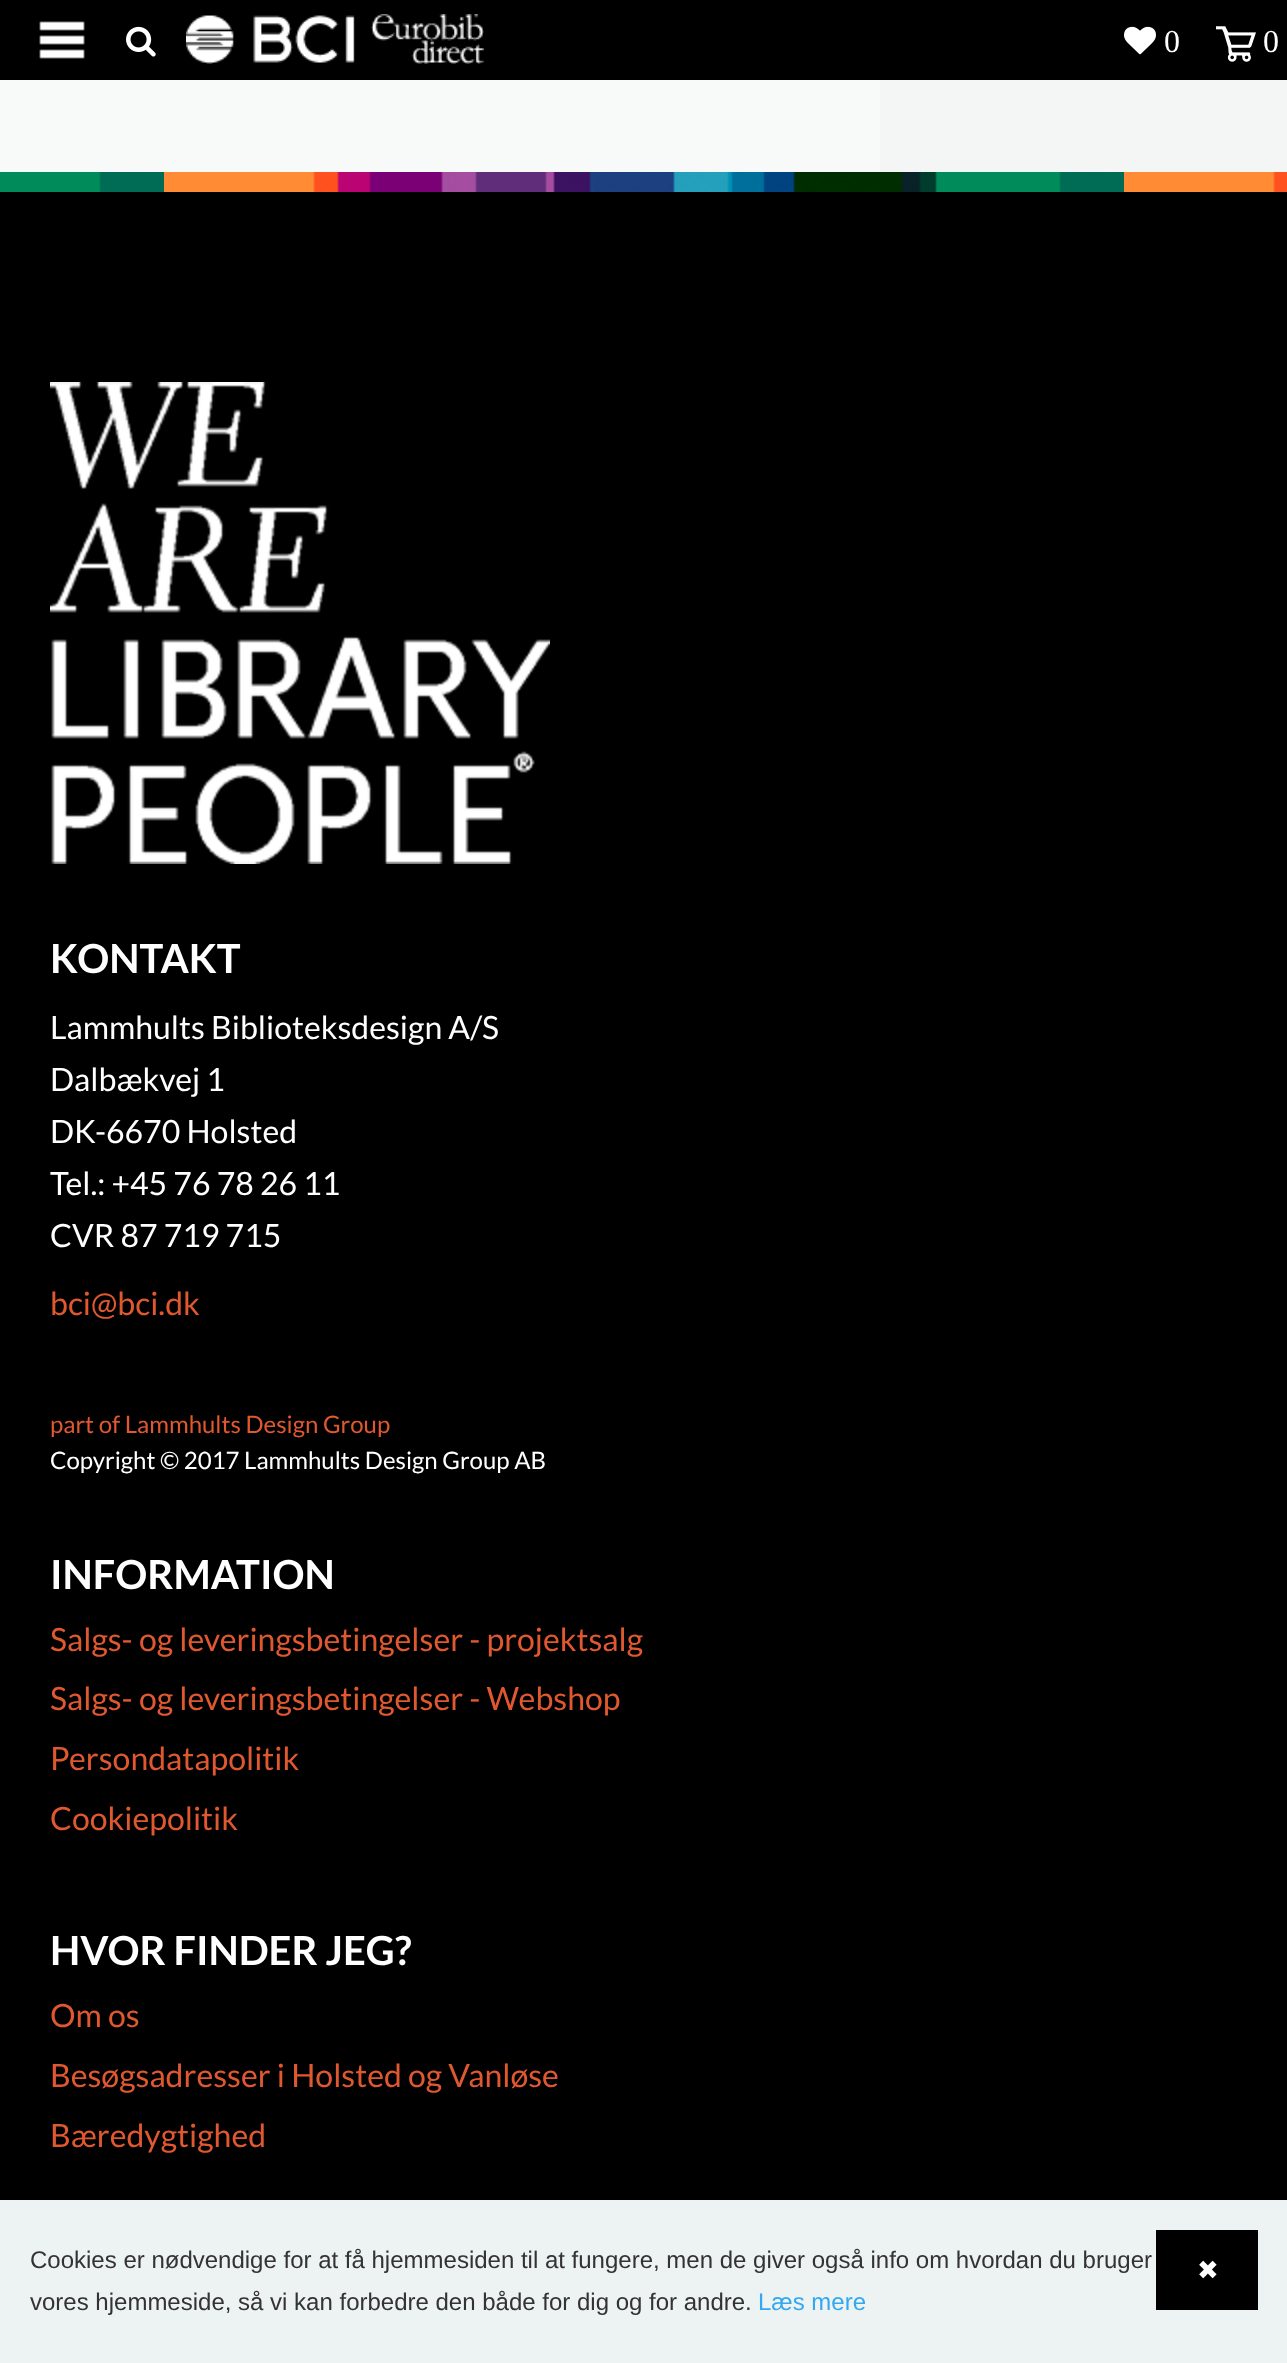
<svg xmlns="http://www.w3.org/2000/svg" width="1287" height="2363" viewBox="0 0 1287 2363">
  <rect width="100%" height="100%" fill="rgb(244,246,246)"/>
  <rect x="0" y="0" width="1287" height="80" fill="rgb(0,0,0)"/>
  <image x="39" y="21" width="46" height="38" href="pic1.png"/>
  <image x="126" y="26" width="30" height="31" href="pic2.png"/>
  <image x="186" y="14" width="298" height="50" href="pic3.png"/>
  <image x="1124" y="26" width="32" height="29" href="pic4.png"/>
  <text x="1164" y="52" font-family="Liberation Serif" font-size="32" fill="rgb(255,255,255)">0</text>
  <image x="1216" y="26" width="40" height="36" href="pic5.png"/>
  <text x="1263" y="52" font-family="Liberation Serif" font-size="32" fill="rgb(255,255,255)">0</text>
  <rect x="0" y="80" width="880" height="92" fill="rgb(248,249,249)"/>
  <rect x="0" y="192" width="1287" height="2008" fill="rgb(0,0,0)"/>
  <image x="0" y="172" width="1287" height="20" href="pic6.png"/>
  <image x="50" y="382" width="500" height="482" href="pic7.png"/>
  <text x="50" y="973" font-family="Lato" font-size="40" font-weight="bold" fill="rgb(255,255,255)">KONTAKT</text>
  <g font-family="Lato" font-size="32" fill="rgb(255,255,255)">
    <text>
      <tspan x="50" y="1039">Lammhults Biblioteksdesign A/S</tspan>
      <tspan x="50" y="1091">Dalbækvej 1</tspan>
      <tspan x="50" y="1143">DK-6670 Holsted</tspan>
      <tspan x="50" y="1195">Tel.: +45 76 78 26 11</tspan>
      <tspan x="50" y="1247">CVR 87 719 715</tspan>
    </text>
  </g>
  <text x="50" y="1315" font-family="Lato" font-size="32" fill="rgb(224,88,48)">bci@bci.dk</text>
  <text x="50" y="1433" font-family="Lato" font-size="24" fill="rgb(224,88,48)">part of Lammhults Design Group</text>
  <text x="50" y="1469" font-family="Lato" font-size="24" fill="rgb(255,255,255)">Copyright © 2017 Lammhults Design Group AB</text>
  <text x="50" y="1589" font-family="Lato" font-size="40" font-weight="bold" fill="rgb(255,255,255)">INFORMATION</text>
  <g font-family="Lato" font-size="32" fill="rgb(224,88,48)">
    <text>
      <tspan x="50" y="1651">Salgs- og leveringsbetingelser - projektsalg</tspan>
      <tspan x="50" y="1710">Salgs- og leveringsbetingelser - Webshop</tspan>
      <tspan x="50" y="1770">Persondatapolitik</tspan>
      <tspan x="50" y="1830">Cookiepolitik</tspan>
    </text>
  </g>
  <text x="50" y="1965" font-family="Lato" font-size="40" font-weight="bold" fill="rgb(255,255,255)">HVOR FINDER JEG?</text>
  <g font-family="Lato" font-size="32" fill="rgb(224,88,48)">
    <text>
      <tspan x="50" y="2027">Om os</tspan>
      <tspan x="50" y="2087">Besøgsadresser i Holsted og Vanløse</tspan>
      <tspan x="50" y="2147">Bæredygtighed</tspan>
    </text>
  </g>
  <rect x="0" y="2200" width="1287" height="163" fill="rgb(237,242,243)"/>
  <g font-family="Liberation Sans" font-size="24" fill="rgb(51,51,51)">
    <text>
      <tspan x="30" y="2268">Cookies er nødvendige for at få hjemmesiden til at fungere, men de giver også info om hvordan du bruger</tspan>
      <tspan x="30" y="2310">vores hjemmeside, så vi kan forbedre den både for dig og for andre.</tspan>
    </text>
  </g>
  <text x="758" y="2310" font-family="Liberation Sans" font-size="24" fill="rgb(49,168,240)">Læs mere</text>
  <rect x="1156" y="2230" width="102" height="80" fill="rgb(0,0,0)"/>
  <text x="1197" y="2279" font-family="DejaVu Sans" font-size="26" fill="rgb(255,255,255)">✖</text>
</svg>
